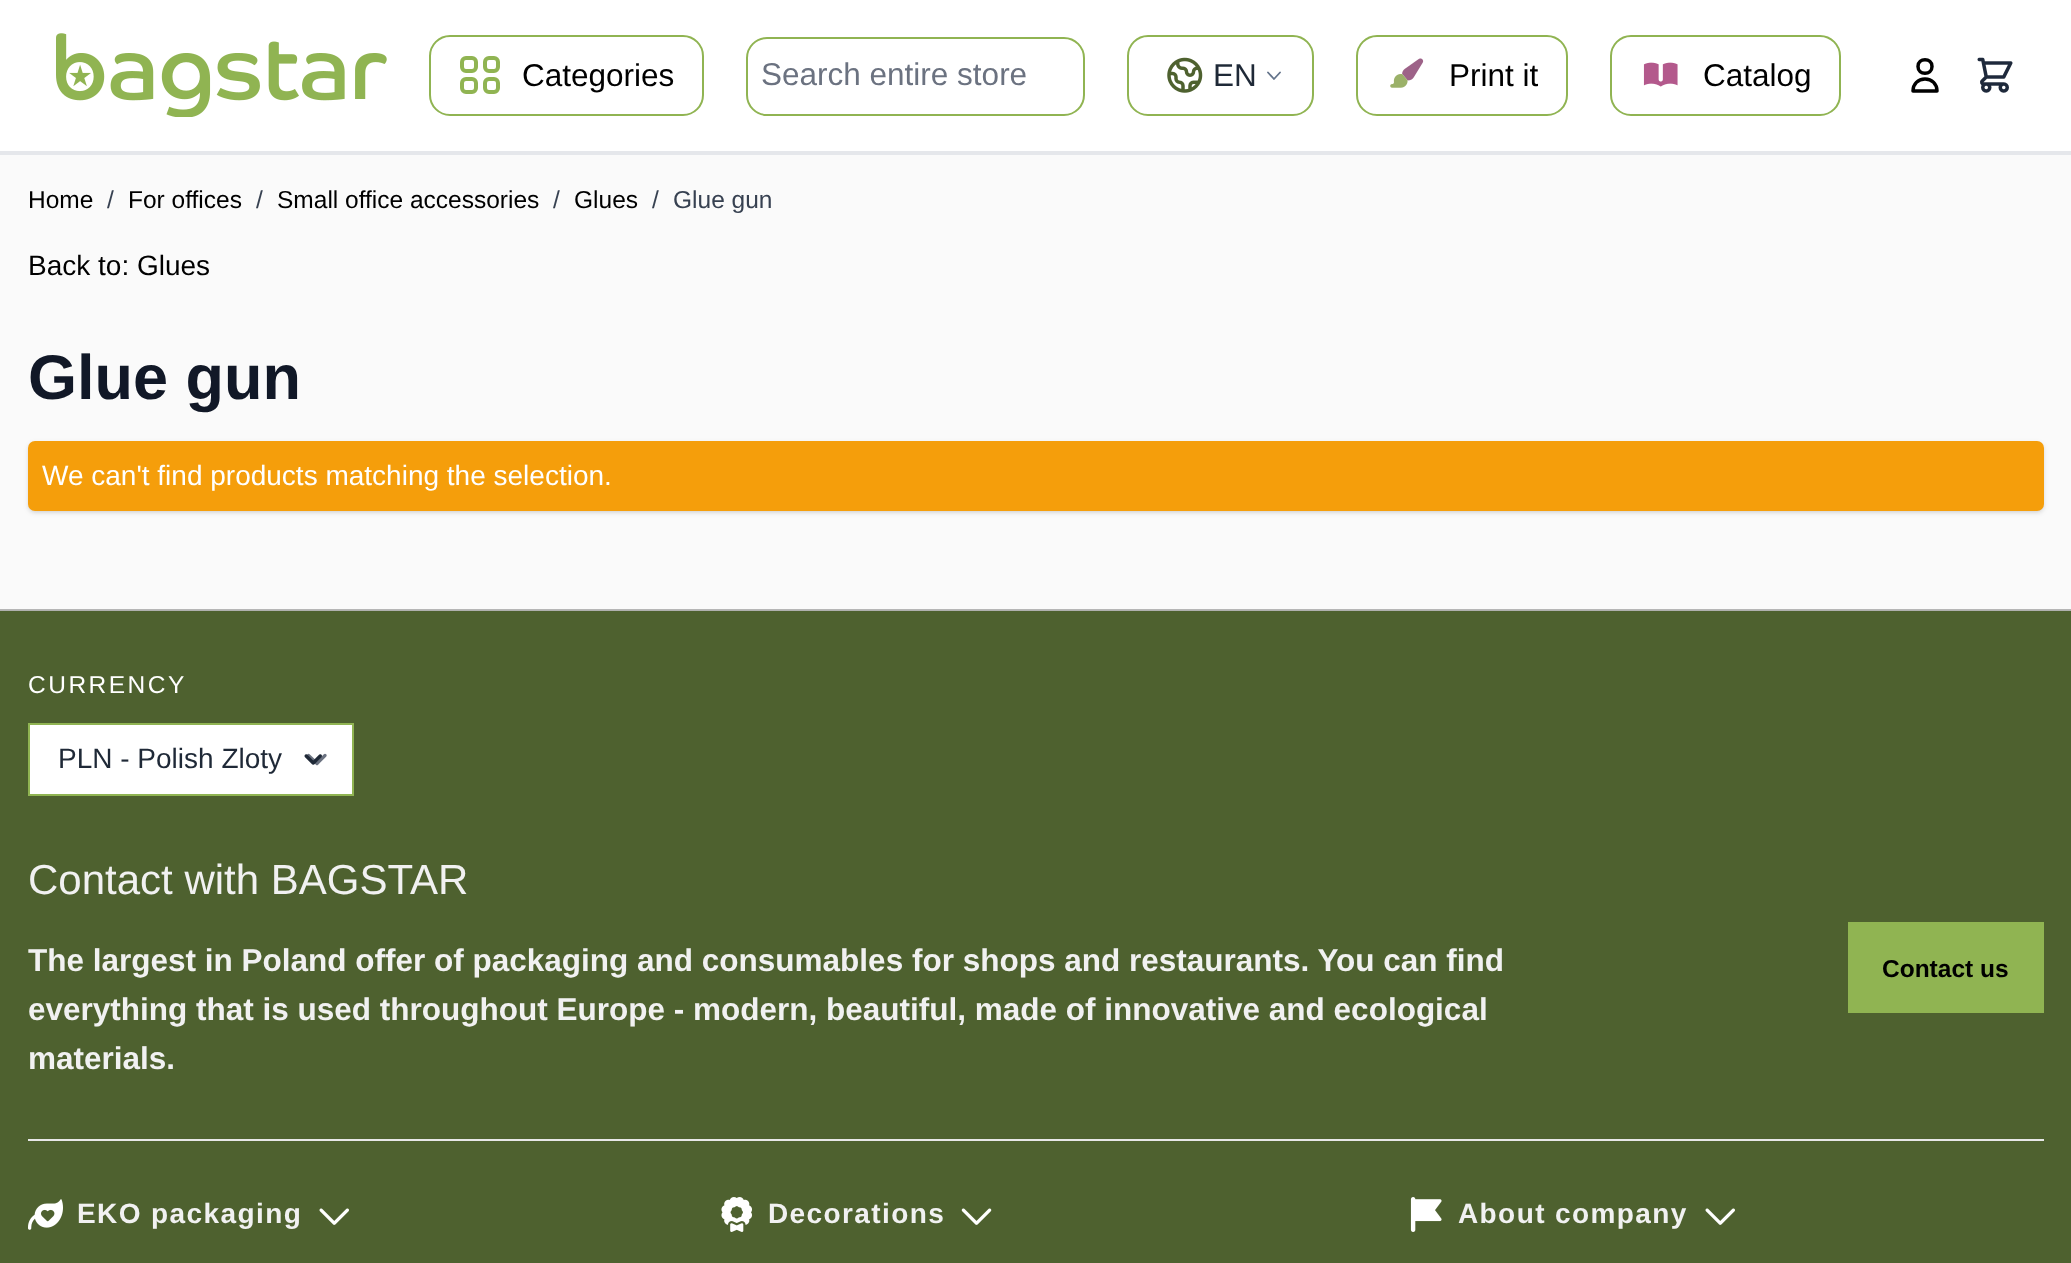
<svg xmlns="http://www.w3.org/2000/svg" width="2071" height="1263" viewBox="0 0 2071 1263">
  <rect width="100%" height="100%" fill="rgb(250,250,250)"/>
  <rect x="0" y="0" width="2071" height="151" fill="rgb(255,255,255)"/>
  <rect x="0" y="151" width="2071" height="4" fill="rgb(229,231,235)"/>
  <image x="56" y="33" width="331" height="84" href="pic1.png"/>
  <rect x="430" y="36" width="273" height="79" rx="20" fill="none" stroke="rgb(144,180,82)" stroke-width="2"/>
  <rect x="462" y="58" width="14" height="13" rx="4" fill="none" stroke="rgb(144,180,82)" stroke-width="4"/>
  <rect x="485" y="58" width="13" height="13" rx="4" fill="none" stroke="rgb(144,180,82)" stroke-width="4"/>
  <rect x="485" y="79" width="13" height="13" rx="4" fill="none" stroke="rgb(144,180,82)" stroke-width="4"/>
  <rect x="462" y="79" width="14" height="13" rx="4" fill="none" stroke="rgb(144,180,82)" stroke-width="4"/>
  <text x="522" y="86" font-family="Liberation Sans" font-size="31.5" fill="rgb(0,0,0)">Categories</text>
  <rect x="747" y="38" width="337" height="77" rx="20" fill="none" stroke="rgb(144,180,82)" stroke-width="2"/>
  <text x="761" y="85" font-family="Liberation Sans" font-size="31.5" fill="rgb(107,114,128)">Search entire store</text>
  <rect x="1128" y="36" width="185" height="79" rx="20" fill="none" stroke="rgb(144,180,82)" stroke-width="2"/>
  <image x="1167" y="57" width="36" height="36" href="pic2.png"/>
  <text x="1213" y="86" font-family="Liberation Sans" font-size="31.5" fill="rgb(31,41,55)">EN</text>
  <path d="M1280 72.5L1274 79L1268 72.5" fill="none" stroke="rgb(100,116,139)" stroke-width="1.8" stroke-linecap="round" stroke-linejoin="round"/>
  <rect x="1357" y="36" width="210" height="79" rx="20" fill="none" stroke="rgb(144,180,82)" stroke-width="2"/>
  <image x="1390" y="58" width="34" height="30" href="pic3.png"/>
  <text x="1449" y="86" font-family="Liberation Sans" font-size="31.5" fill="rgb(0,0,0)">Print it</text>
  <rect x="1611" y="36" width="229" height="79" rx="20" fill="none" stroke="rgb(144,180,82)" stroke-width="2"/>
  <image x="1643" y="62" width="35" height="25" href="pic4.png"/>
  <text x="1703" y="86" font-family="Liberation Sans" font-size="31.5" fill="rgb(0,0,0)">Catalog</text>
  <path d="M1932 66.5C1932 75.5 1918 75.5 1918 66.5C1918 57.5 1932 57.5 1932 66.5ZM1925 79C1918 79 1913 84 1913 91H1937C1937 84 1932 79 1925 79Z" fill="none" stroke="rgb(0,0,0)" stroke-width="3.5" stroke-linecap="round" stroke-linejoin="round"/>
  <image x="1977" y="57" width="36" height="36" href="pic5.png"/>
  <text x="28" y="208" font-family="Liberation Sans" font-size="24.5" fill="rgb(0,0,0)">Home</text>
  <text x="107" y="208" font-family="Liberation Sans" font-size="24.5" fill="rgb(55,65,81)">/</text>
  <text x="128" y="208" font-family="Liberation Sans" font-size="24.5" fill="rgb(0,0,0)">For offices</text>
  <text x="256" y="208" font-family="Liberation Sans" font-size="24.5" fill="rgb(55,65,81)">/</text>
  <text x="277" y="208" font-family="Liberation Sans" font-size="24.5" fill="rgb(0,0,0)">Small office accessories</text>
  <text x="553" y="208" font-family="Liberation Sans" font-size="24.5" fill="rgb(55,65,81)">/</text>
  <text x="574" y="208" font-family="Liberation Sans" font-size="24.5" fill="rgb(0,0,0)">Glues</text>
  <g font-family="Liberation Sans" font-size="24.5" fill="rgb(55,65,81)">
    <text x="652" y="208">/</text>
    <text x="673" y="208">Glue gun</text>
  </g>
  <text x="28" y="275" font-family="Liberation Sans" font-size="28" fill="rgb(0,0,0)">Back to: Glues</text>
  <text x="28" y="399" font-family="Liberation Sans" font-size="63" font-weight="bold" fill="rgb(17,24,39)">Glue gun</text>
  <rect x="30" y="445" width="2012" height="66" rx="5" fill="rgba(0,0,0,0.1)" filter="blur(2px)"/>
  <rect x="28" y="443" width="2016" height="70" rx="7" fill="rgba(0,0,0,0.1)" filter="blur(2.5px)"/>
  <rect x="28" y="441" width="2016" height="70" rx="7" fill="rgb(245,158,11)"/>
  <text x="42" y="485" font-family="Liberation Sans" font-size="28" fill="rgb(255,255,255)">We can't find products matching the selection.</text>
  <rect x="0" y="611" width="2071" height="652" fill="rgb(78,97,47)"/>
  <rect x="0" y="609" width="2071" height="1" fill="rgb(182,182,182)"/>
  <rect x="0" y="610" width="2071" height="1" fill="rgb(176,177,174)"/>
  <text x="28" y="693" font-family="Liberation Sans" font-size="24.5" letter-spacing="2.5" fill="rgb(255,255,255)">CURRENCY</text>
  <rect x="30" y="725" width="322" height="69" fill="rgb(255,255,255)"/>
  <path d="M308.5 755.5L317 763.5L325 755.5" fill="none" stroke="rgb(107,114,128)" stroke-width="3.2" stroke-linecap="round" stroke-linejoin="round"/>
  <rect x="29" y="724" width="324" height="71" fill="none" stroke="rgb(144,180,82)" stroke-width="2"/>
  <text x="58" y="768" font-family="Liberation Sans" font-size="28" fill="rgb(31,41,55)">PLN - Polish Zloty</text>
  <image x="304" y="754" width="18" height="11" href="pic6.png"/>
  <rect x="28" y="1139" width="2016" height="2" fill="rgb(231,231,231)"/>
  <text x="28" y="894" font-family="Liberation Sans" font-size="42" fill="rgb(241,241,241)">Contact with BAGSTAR</text>
  <g font-family="Liberation Sans" font-size="31.5" font-weight="bold" fill="rgb(241,241,241)">
    <text>
      <tspan x="28" y="971">The largest in Poland offer of packaging and consumables for shops and restaurants. You can find</tspan>
      <tspan x="28" y="1020">everything that is used throughout Europe - modern, beautiful, made of innovative and ecological</tspan>
      <tspan x="28" y="1069">materials.</tspan>
    </text>
  </g>
  <rect x="1848" y="922" width="196" height="91" fill="rgb(144,180,82)"/>
  <text x="1882" y="977" font-family="Liberation Sans" font-size="24.5" font-weight="bold" fill="rgb(0,0,0)">Contact us</text>
  <image x="28" y="1199" width="35" height="31" href="pic7.png"/>
  <text x="77" y="1223" font-family="Liberation Sans" font-size="28" font-weight="bold" letter-spacing="1.4" fill="rgb(241,241,241)">EKO packaging</text>
  <image x="319" y="1208" width="30" height="17" href="pic8.png"/>
  <image x="721" y="1197" width="31" height="35" href="pic9.png"/>
  <text x="768" y="1223" font-family="Liberation Sans" font-size="28" font-weight="bold" letter-spacing="1.4" fill="rgb(241,241,241)">Decorations</text>
  <image x="961" y="1208" width="31" height="17" href="pic10.png"/>
  <image x="1410" y="1197" width="32" height="35" href="pic11.png"/>
  <text x="1458" y="1223" font-family="Liberation Sans" font-size="28" font-weight="bold" letter-spacing="1.4" fill="rgb(241,241,241)">About company</text>
  <image x="1705" y="1208" width="30" height="17" href="pic8.png"/>
</svg>
